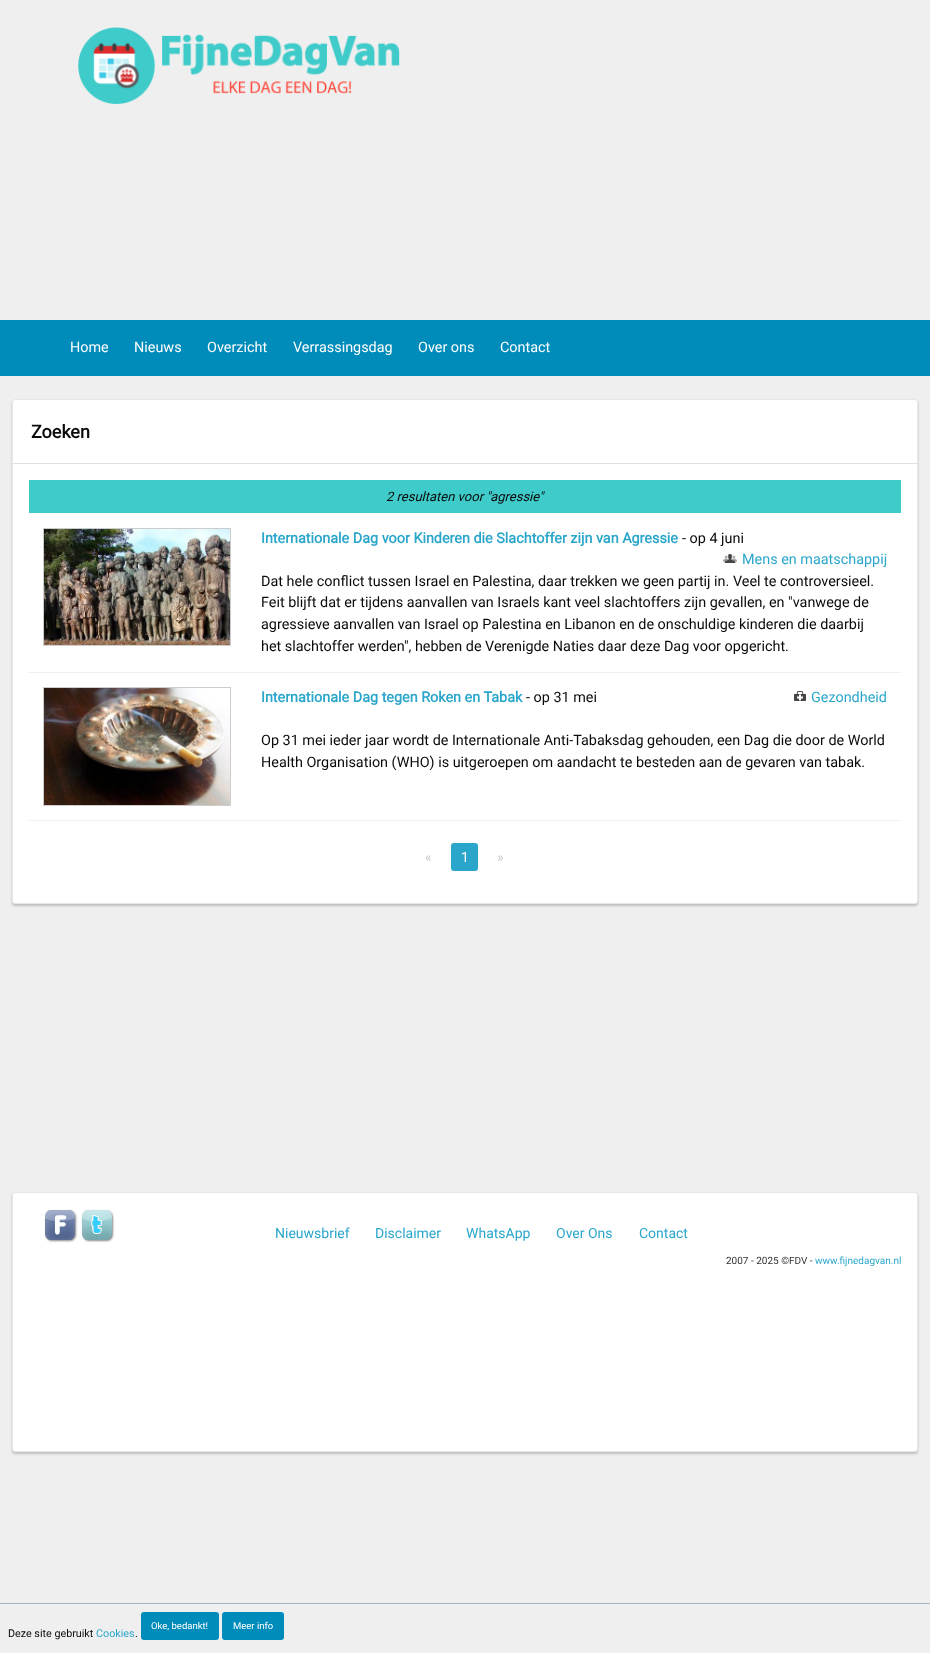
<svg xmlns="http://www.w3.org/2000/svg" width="930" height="1653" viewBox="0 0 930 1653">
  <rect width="100%" height="100%" fill="rgb(239,239,239)"/>
  <image x="78" y="27" width="322" height="77" href="pic1.png"/>
  <rect x="0" y="320" width="930" height="56" fill="rgb(0,140,186)"/>
  <g font-family="Roboto" font-size="14.4" fill="rgb(254,254,254)">
    <text x="70" y="352">Home</text>
    <text x="134" y="352">Nieuws</text>
    <text x="207" y="352">Overzicht</text>
    <text x="293" y="352">Verrassingsdag</text>
    <text x="418" y="352">Over ons</text>
    <text x="500" y="352">Contact</text>
  </g>
  <rect x="12" y="401" width="906" height="505" rx="3" fill="rgba(0,0,0,0.2)" filter="blur(1px)"/>
  <rect x="12.5" y="399.5" width="905" height="504" rx="2.5" fill="rgb(255,255,255)" stroke="rgb(230,230,230)"/>
  <rect x="13" y="463" width="904" height="1" fill="rgb(224,224,224)"/>
  <text x="31" y="438" font-family="Roboto" font-size="18" font-weight="bold" fill="rgb(10,10,10)">Zoeken</text>
  <rect x="29" y="480" width="872" height="33" fill="rgb(62,203,201)"/>
  <text x="386" y="501" font-family="Roboto" font-size="13" font-style="italic" fill="rgb(10,10,10)">2 resultaten voor "agressie"</text>
  <rect x="29" y="672" width="872" height="1" fill="rgb(239,239,239)"/>
  <rect x="43.5" y="528.5" width="187" height="117" fill="none" stroke="rgb(204,204,204)"/>
  <image x="44" y="529" width="186" height="116" href="pic2.png"/>
  <text x="261" y="543" font-family="Roboto" font-size="14.4" font-weight="bold" fill="rgb(43,166,203)">Internationale Dag voor Kinderen die Slachtoffer zijn van Agressie</text>
  <text x="682" y="543" font-family="Roboto" font-size="14.4" fill="rgb(10,10,10)">- op 4 juni</text>
  <image x="723" y="554" width="14" height="9" href="pic3.png"/>
  <text x="742" y="564" font-family="Roboto" font-size="14.4" fill="rgb(43,166,203)">Mens en maatschappij</text>
  <g font-family="Roboto" font-size="14.4" fill="rgb(10,10,10)">
    <text>
      <tspan x="261" y="586">Dat hele conflict tussen Israel en Palestina, daar trekken we geen partij in. Veel te controversieel.</tspan>
      <tspan x="261" y="607">Feit blijft dat er tijdens aanvallen van Israels kant veel slachtoffers zijn gevallen, en "vanwege de</tspan>
      <tspan x="261" y="629">agressieve aanvallen van Israel op Palestina en Libanon en de onschuldige kinderen die daarbij</tspan>
      <tspan x="261" y="651">het slachtoffer werden", hebben de Verenigde Naties daar deze Dag voor opgericht.</tspan>
    </text>
  </g>
  <rect x="29" y="820" width="872" height="1" fill="rgb(239,239,239)"/>
  <rect x="43.5" y="687.5" width="187" height="118" fill="none" stroke="rgb(204,204,204)"/>
  <image x="44" y="688" width="186" height="117" href="pic4.png"/>
  <text x="261" y="702" font-family="Roboto" font-size="14.4" font-weight="bold" fill="rgb(43,166,203)">Internationale Dag tegen Roken en Tabak</text>
  <text x="526" y="702" font-family="Roboto" font-size="14.4" fill="rgb(10,10,10)">- op 31 mei</text>
  <image x="794" y="691" width="12" height="10" href="pic5.png"/>
  <text x="811" y="702" font-family="Roboto" font-size="14.4" fill="rgb(43,166,203)">Gezondheid</text>
  <g font-family="Roboto" font-size="14.4" fill="rgb(10,10,10)">
    <text>
      <tspan x="261" y="745">Op 31 mei ieder jaar wordt de Internationale Anti-Tabaksdag gehouden, een Dag die door de World</tspan>
      <tspan x="261" y="767">Health Organisation (WHO) is uitgeroepen om aandacht te besteden aan de gevaren van tabak.</tspan>
    </text>
  </g>
  <text x="425" y="862" font-family="Roboto" font-size="14" fill="rgb(202,202,202)">«</text>
  <rect x="451" y="843" width="27" height="28" rx="3" fill="rgb(43,166,203)"/>
  <text x="461" y="862" font-family="Roboto" font-size="14" fill="rgb(254,254,254)">1</text>
  <text x="497" y="862" font-family="Roboto" font-size="14" fill="rgb(202,202,202)">»</text>
  <rect x="12" y="1194" width="906" height="260" rx="3" fill="rgba(0,0,0,0.2)" filter="blur(1px)"/>
  <rect x="12.5" y="1192.5" width="905" height="259" rx="2.5" fill="rgb(255,255,255)" stroke="rgb(230,230,230)"/>
  <image x="44" y="1209" width="34" height="34" href="pic6.png"/>
  <image x="81" y="1209" width="34" height="34" href="pic7.png"/>
  <g font-family="Roboto" font-size="14" fill="rgb(43,166,203)">
    <text x="275" y="1238">Nieuwsbrief</text>
    <text x="375" y="1238">Disclaimer</text>
    <text x="466" y="1238">WhatsApp</text>
    <text x="556" y="1238">Over Ons</text>
    <text x="639" y="1238">Contact</text>
  </g>
  <text x="726" y="1264" font-family="Roboto" font-size="10" fill="rgb(51,51,51)">2007 - 2025 ©FDV -</text>
  <text x="815" y="1264" font-family="Roboto" font-size="10" fill="rgb(43,166,203)">www.fijnedagvan.nl</text>
  <rect x="0" y="1603" width="930" height="1" fill="rgb(158,180,203)"/>
  <rect x="141" y="1612" width="78" height="28" rx="3" fill="rgb(0,140,186)"/>
  <text x="151" y="1629" font-family="Roboto" font-size="9.5" fill="rgb(254,254,254)">Oke, bedankt!</text>
  <rect x="222" y="1612" width="62" height="28" rx="3" fill="rgb(0,140,186)"/>
  <text x="233" y="1629" font-family="Roboto" font-size="9.5" fill="rgb(254,254,254)">Meer info</text>
  <text x="8" y="1637" font-family="Roboto" font-size="10.75" fill="rgb(10,10,10)">Deze site gebruikt</text>
  <text x="96" y="1637" font-family="Roboto" font-size="10.75" fill="rgb(43,166,203)">Cookies</text>
  <text x="135" y="1637" font-family="Roboto" font-size="10.75" fill="rgb(10,10,10)">.</text>
</svg>
